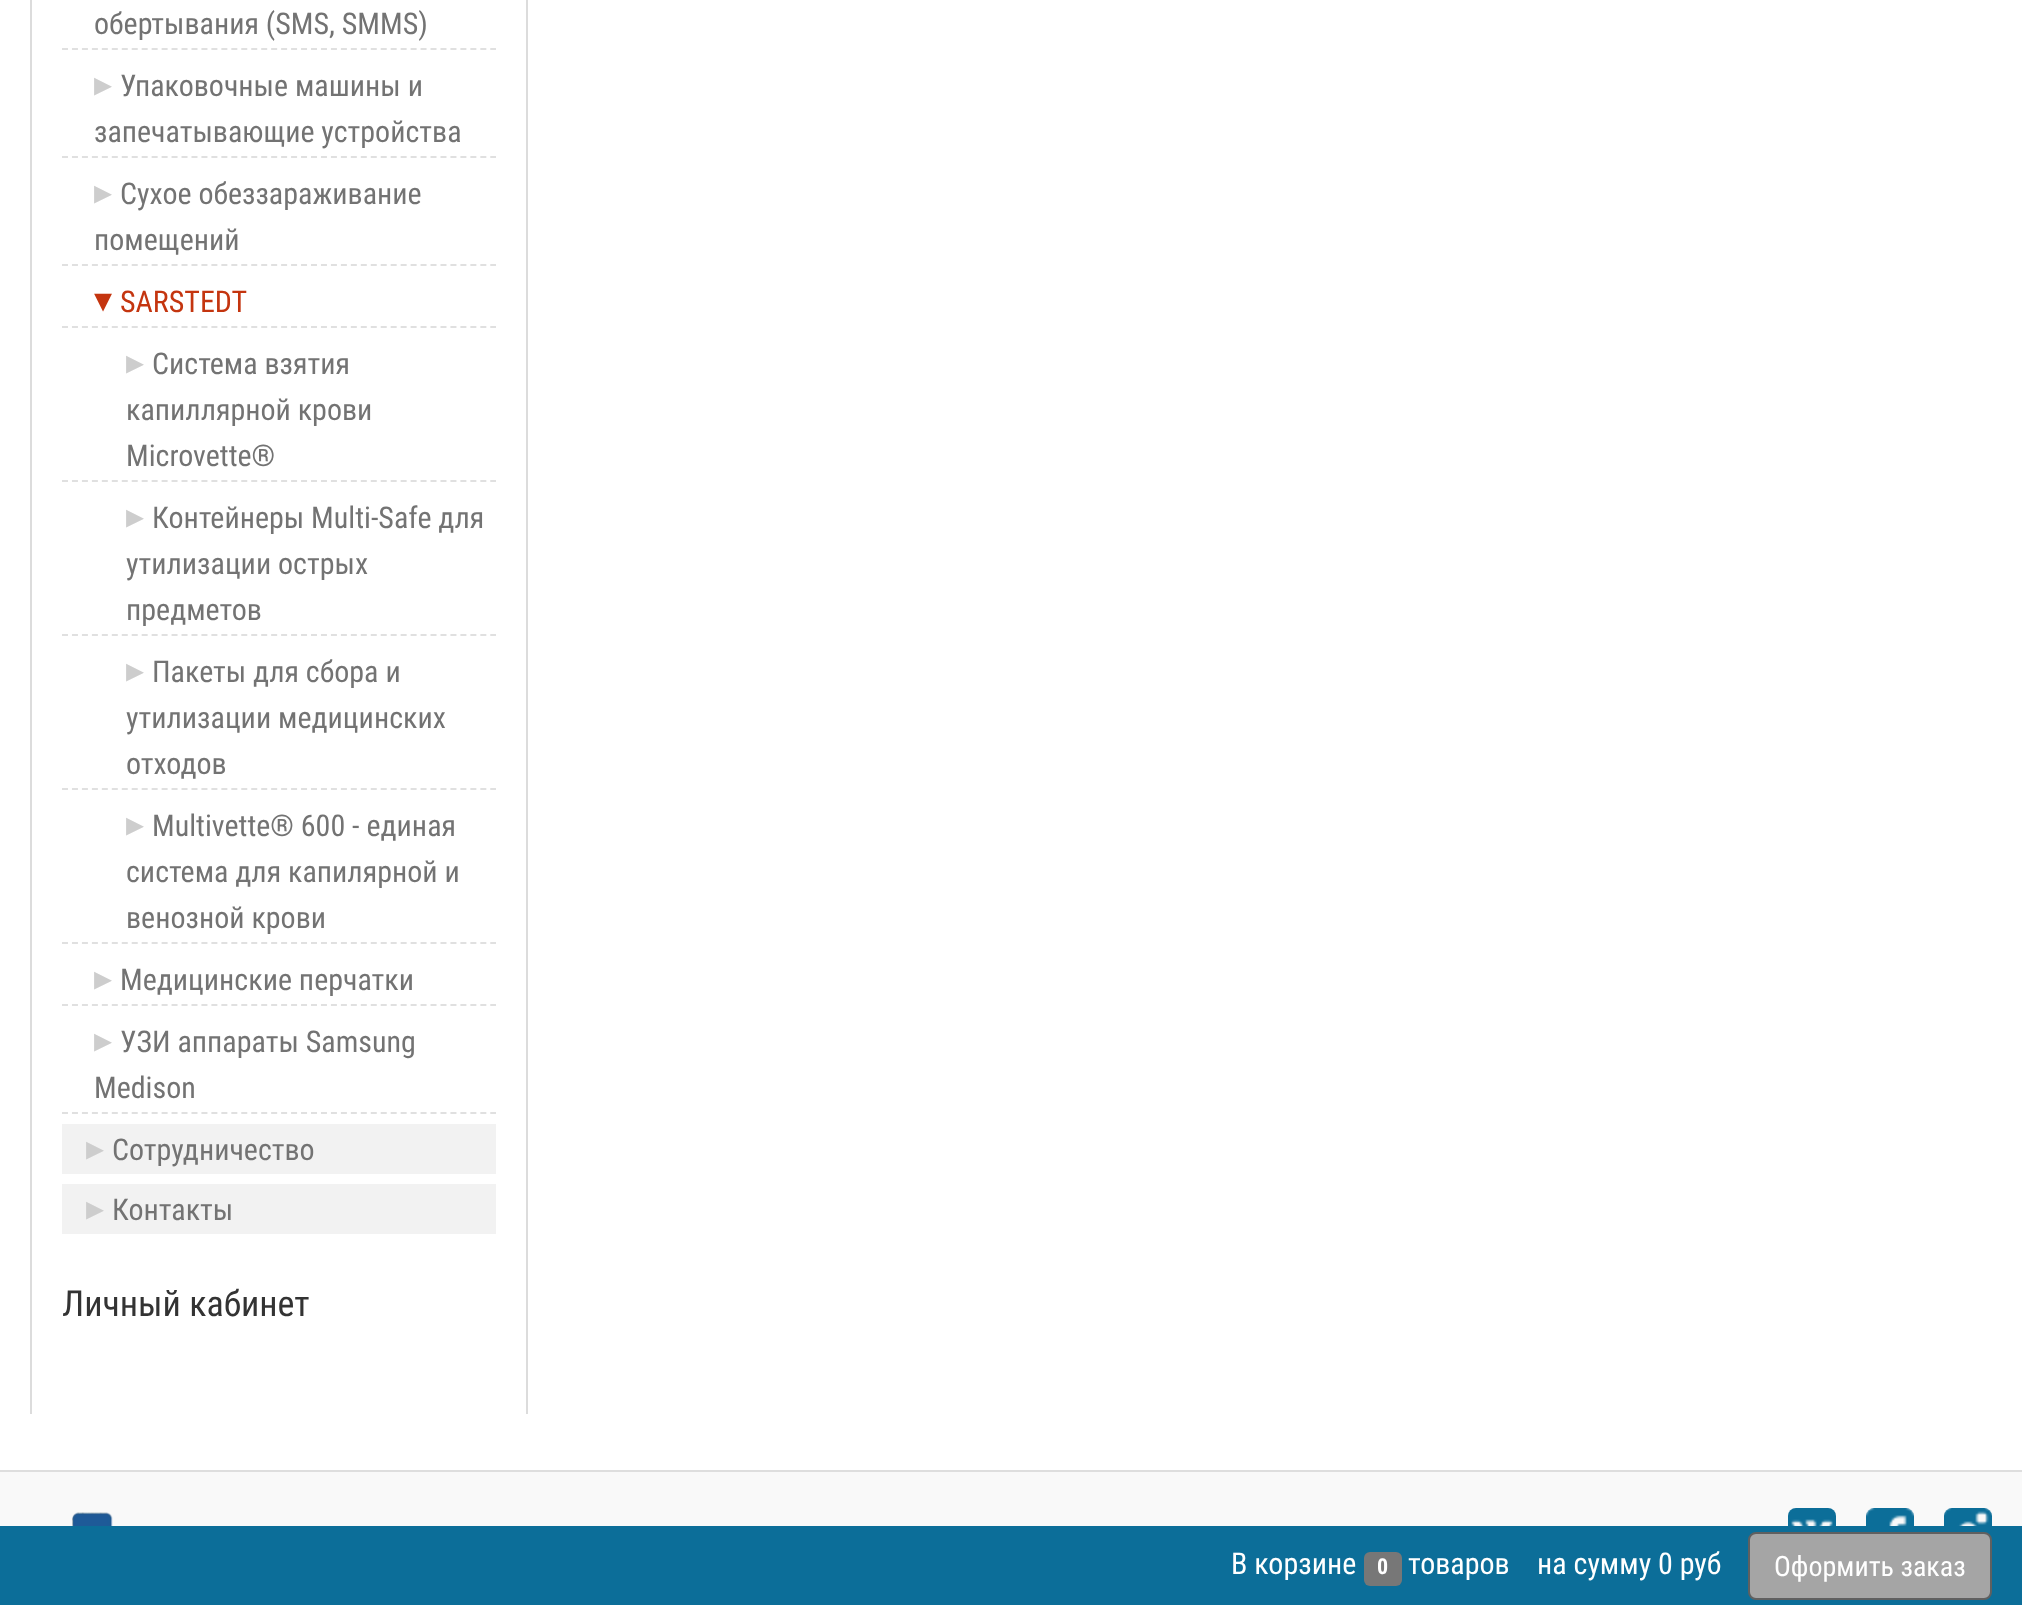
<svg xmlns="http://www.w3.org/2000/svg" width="2022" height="1605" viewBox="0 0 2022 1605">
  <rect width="100%" height="100%" fill="rgb(255,255,255)"/>
  <rect x="526" y="0" width="2" height="1414" fill="rgb(220,220,220)"/>
  <rect x="30" y="0" width="2" height="1414" fill="rgb(220,220,220)"/>
  <path d="M62 49H496" fill="none" stroke="rgb(224,224,224)" stroke-width="2" stroke-dasharray="6 3.96"/>
  <text x="94" y="34" font-family="Roboto Condensed" font-size="30" fill="rgb(115,115,115)">обертывания (SMS, SMMS)</text>
  <path d="M62 157H496" fill="none" stroke="rgb(224,224,224)" stroke-width="2" stroke-dasharray="6 3.96"/>
  <text x="94" y="96" font-family="DejaVu Sans" font-size="36" fill="rgb(205,205,205)">▸</text>
  <g font-family="Roboto Condensed" font-size="30" fill="rgb(115,115,115)">
    <text x="120" y="96">Упаковочные машины и</text>
    <text x="94" y="142">запечатывающие устройства</text>
  </g>
  <path d="M62 265H496" fill="none" stroke="rgb(224,224,224)" stroke-width="2" stroke-dasharray="6 3.96"/>
  <text x="94" y="204" font-family="DejaVu Sans" font-size="36" fill="rgb(205,205,205)">▸</text>
  <g font-family="Roboto Condensed" font-size="30" fill="rgb(115,115,115)">
    <text x="120" y="204">Сухое обеззараживание</text>
    <text x="94" y="250">помещений</text>
  </g>
  <path d="M62 327H496" fill="none" stroke="rgb(224,224,224)" stroke-width="2" stroke-dasharray="6 3.96"/>
  <text x="94" y="312" font-family="DejaVu Sans" font-size="36" fill="rgb(196,53,15)">▾</text>
  <text x="120" y="312" font-family="Roboto Condensed" font-size="30" fill="rgb(196,53,15)">SARSTEDT</text>
  <path d="M62 481H496" fill="none" stroke="rgb(224,224,224)" stroke-width="2" stroke-dasharray="6 3.96"/>
  <text x="126" y="374" font-family="DejaVu Sans" font-size="36" fill="rgb(205,205,205)">▸</text>
  <g font-family="Roboto Condensed" font-size="30" fill="rgb(115,115,115)">
    <text x="152" y="374">Система взятия</text>
    <text>
      <tspan x="126" y="420">капиллярной крови</tspan>
      <tspan x="126" y="466">Microvette®</tspan>
    </text>
  </g>
  <path d="M62 635H496" fill="none" stroke="rgb(224,224,224)" stroke-width="2" stroke-dasharray="6 3.96"/>
  <text x="126" y="528" font-family="DejaVu Sans" font-size="36" fill="rgb(205,205,205)">▸</text>
  <g font-family="Roboto Condensed" font-size="30" fill="rgb(115,115,115)">
    <text x="152" y="528">Контейнеры Multi-Safe для</text>
    <text>
      <tspan x="126" y="574">утилизации острых</tspan>
      <tspan x="126" y="620">предметов</tspan>
    </text>
  </g>
  <path d="M62 789H496" fill="none" stroke="rgb(224,224,224)" stroke-width="2" stroke-dasharray="6 3.96"/>
  <text x="126" y="682" font-family="DejaVu Sans" font-size="36" fill="rgb(205,205,205)">▸</text>
  <g font-family="Roboto Condensed" font-size="30" fill="rgb(115,115,115)">
    <text x="152" y="682">Пакеты для сбора и</text>
    <text>
      <tspan x="126" y="728">утилизации медицинских</tspan>
      <tspan x="126" y="774">отходов</tspan>
    </text>
  </g>
  <path d="M62 943H496" fill="none" stroke="rgb(224,224,224)" stroke-width="2" stroke-dasharray="6 3.96"/>
  <text x="126" y="836" font-family="DejaVu Sans" font-size="36" fill="rgb(205,205,205)">▸</text>
  <g font-family="Roboto Condensed" font-size="30" fill="rgb(115,115,115)">
    <text x="152" y="836">Multivette® 600 - единая</text>
    <text>
      <tspan x="126" y="882">система для капилярной и</tspan>
      <tspan x="126" y="928">венозной крови</tspan>
    </text>
  </g>
  <path d="M62 1005H496" fill="none" stroke="rgb(224,224,224)" stroke-width="2" stroke-dasharray="6 3.96"/>
  <text x="94" y="990" font-family="DejaVu Sans" font-size="36" fill="rgb(205,205,205)">▸</text>
  <text x="120" y="990" font-family="Roboto Condensed" font-size="30" fill="rgb(115,115,115)">Медицинские перчатки</text>
  <path d="M62 1113H496" fill="none" stroke="rgb(224,224,224)" stroke-width="2" stroke-dasharray="6 3.96"/>
  <text x="94" y="1052" font-family="DejaVu Sans" font-size="36" fill="rgb(205,205,205)">▸</text>
  <g font-family="Roboto Condensed" font-size="30" fill="rgb(115,115,115)">
    <text x="120" y="1052">УЗИ аппараты Samsung</text>
    <text x="94" y="1098">Medison</text>
  </g>
  <rect x="62" y="1124" width="434" height="50" fill="rgb(242,242,242)"/>
  <text x="86" y="1160" font-family="DejaVu Sans" font-size="36" fill="rgb(205,205,205)">▸</text>
  <text x="112" y="1160" font-family="Roboto Condensed" font-size="30" fill="rgb(115,115,115)">Сотрудничество</text>
  <rect x="62" y="1184" width="434" height="50" fill="rgb(242,242,242)"/>
  <text x="86" y="1220" font-family="DejaVu Sans" font-size="36" fill="rgb(205,205,205)">▸</text>
  <text x="112" y="1220" font-family="Roboto Condensed" font-size="30" fill="rgb(115,115,115)">Контакты</text>
  <text x="62" y="1316" font-family="Roboto Condensed" font-size="36" fill="rgb(51,51,51)">Личный кабинет</text>
  <rect x="0" y="1526" width="2022" height="79" fill="rgb(12,110,153)"/>
  <text x="1231" y="1574" font-family="Roboto Condensed" font-size="30" fill="rgb(255,255,255)">В корзине</text>
  <rect x="1364" y="1552" width="38" height="34" rx="6" fill="rgb(119,119,119)"/>
  <text x="1377" y="1574" font-family="Roboto Condensed" font-size="22" font-weight="bold" fill="rgb(255,255,255)">0</text>
  <g font-family="Roboto Condensed" font-size="30" fill="rgb(255,255,255)">
    <text x="1408" y="1574">товаров</text>
    <text x="1537" y="1574">на сумму 0 руб</text>
  </g>
  <rect x="1749" y="1533" width="242" height="66" rx="7" fill="rgb(165,165,165)" stroke="rgb(96,96,96)" stroke-width="2"/>
  <text x="1774" y="1576" font-family="Roboto Condensed" font-size="28" fill="rgb(255,255,255)">Оформить заказ</text>
  <rect x="0" y="1472" width="2022" height="54" fill="rgb(249,249,249)"/>
  <rect x="0" y="1470" width="2022" height="2" fill="rgb(222,222,222)"/>
  <image x="71" y="1512" width="42" height="14" href="pic1.png"/>
  <image x="1788" y="1508" width="48" height="18" href="pic2.png"/>
  <image x="1866" y="1508" width="48" height="18" href="pic3.png"/>
  <image x="1944" y="1508" width="48" height="18" href="pic4.png"/>
</svg>
